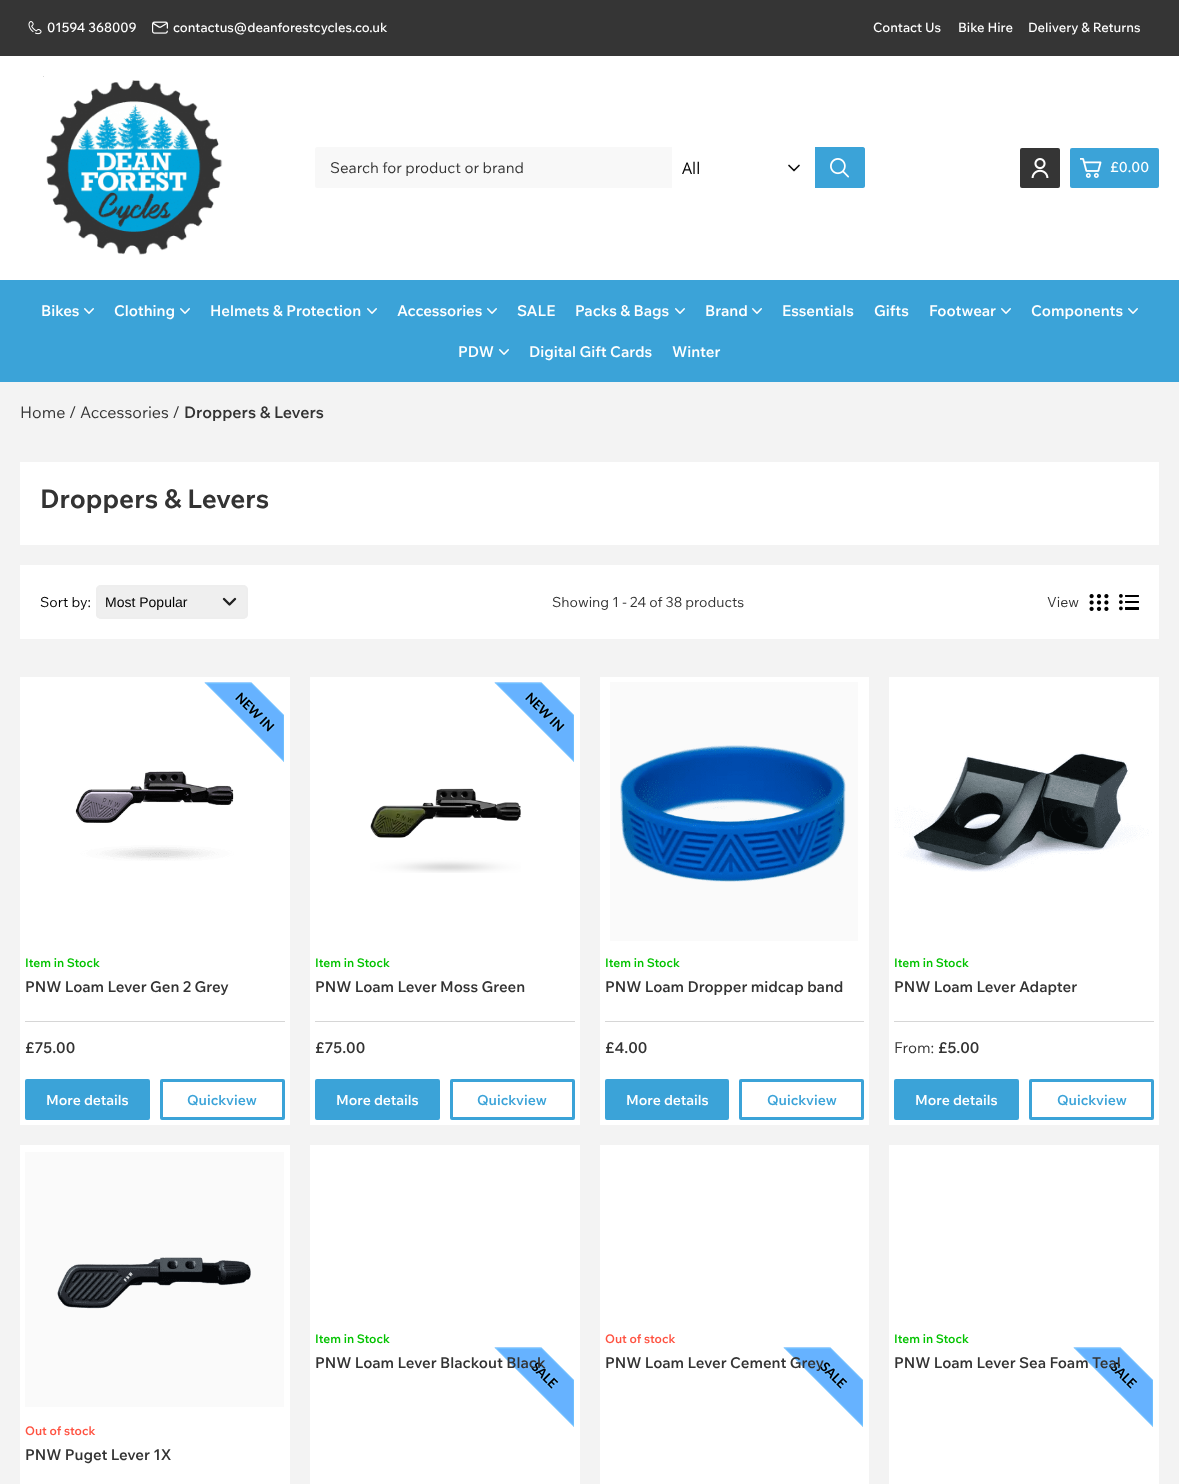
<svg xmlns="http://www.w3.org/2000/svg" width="1179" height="1484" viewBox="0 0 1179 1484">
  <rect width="100%" height="100%" fill="rgb(255,255,255)"/>
  <rect x="0" y="0" width="1179" height="56" fill="rgb(53,53,53)"/>
  <image x="28" y="21" width="14" height="14" href="pic1.png"/>
  <text x="47" y="32" font-family="Wix Madefor Text" font-size="13" font-weight="500" fill="rgb(255,255,255)">01594 368009</text>
  <image x="152" y="21" width="16" height="13" href="pic2.png"/>
  <g font-family="Wix Madefor Text" font-size="13" font-weight="500" fill="rgb(255,255,255)">
    <text x="173" y="32">contactus@deanforestcycles.co.uk</text>
    <text x="873" y="32">Contact Us</text>
    <text x="958" y="32">Bike Hire</text>
    <text x="1028" y="32">Delivery &amp; Returns</text>
  </g>
  <image x="43" y="76" width="180" height="179" href="pic3.png"/>
  <path d="M317 147H672V188H317C316 188 315 187 315 186V149C315 148 316 147 317 147Z" fill="rgb(248,248,248)"/>
  <text x="330" y="173" font-family="Wix Madefor Text" font-size="15" fill="rgb(51,51,51)">Search for product or brand</text>
  <path d="M789 165.5L794 170.5L799 165.5" fill="none" stroke="rgb(17,17,17)" stroke-width="1.7" stroke-linecap="round" stroke-linejoin="round"/>
  <text x="682" y="174" font-family="Open Sans" font-size="16" fill="rgb(0,0,0)">All</text>
  <path d="M815 147H863C864 147 865 148 865 149V186C865 187 864 188 863 188H815Z" fill="rgb(59,163,216)"/>
  <image x="830" y="158" width="19" height="20" href="pic4.png"/>
  <rect x="1020" y="148" width="40" height="40" rx="2" fill="rgb(53,53,53)"/>
  <image x="1031" y="158" width="18" height="20" href="pic5.png"/>
  <rect x="1070" y="148" width="89" height="40" rx="2" fill="rgb(59,163,216)"/>
  <image x="1080" y="158" width="22" height="20" href="pic6.png"/>
  <text x="1110" y="172" font-family="Wix Madefor Text" font-size="14" font-weight="500" fill="rgb(255,255,255)">£0.00</text>
  <rect x="0" y="280" width="1179" height="102" fill="rgb(59,163,216)"/>
  <text x="41" y="316" font-family="Wix Madefor Text" font-size="15" font-weight="600" fill="rgb(255,255,255)">Bikes</text>
  <image x="84" y="308" width="10" height="6" href="pic7.png"/>
  <text x="114" y="316" font-family="Wix Madefor Text" font-size="15" font-weight="600" fill="rgb(255,255,255)">Clothing</text>
  <image x="180" y="308" width="10" height="6" href="pic7.png"/>
  <text x="210" y="316" font-family="Wix Madefor Text" font-size="15" font-weight="600" fill="rgb(255,255,255)">Helmets &amp; Protection</text>
  <image x="367" y="308" width="10" height="6" href="pic7.png"/>
  <text x="397" y="316" font-family="Wix Madefor Text" font-size="15" font-weight="600" fill="rgb(255,255,255)">Accessories</text>
  <image x="487" y="308" width="10" height="6" href="pic7.png"/>
  <g font-family="Wix Madefor Text" font-size="15" font-weight="600" fill="rgb(255,255,255)">
    <text x="517" y="316">SALE</text>
    <text x="575" y="316">Packs &amp; Bags</text>
  </g>
  <image x="675" y="308" width="10" height="6" href="pic7.png"/>
  <text x="705" y="316" font-family="Wix Madefor Text" font-size="15" font-weight="600" fill="rgb(255,255,255)">Brand</text>
  <image x="752" y="308" width="10" height="6" href="pic7.png"/>
  <g font-family="Wix Madefor Text" font-size="15" font-weight="600" fill="rgb(255,255,255)">
    <text x="782" y="316">Essentials</text>
    <text x="874" y="316">Gifts</text>
    <text x="929" y="316">Footwear</text>
  </g>
  <image x="1001" y="308" width="10" height="6" href="pic7.png"/>
  <text x="1031" y="316" font-family="Wix Madefor Text" font-size="15" font-weight="600" fill="rgb(255,255,255)">Components</text>
  <image x="1128" y="308" width="10" height="6" href="pic7.png"/>
  <text x="458" y="357" font-family="Wix Madefor Text" font-size="15" font-weight="600" fill="rgb(255,255,255)">PDW</text>
  <image x="499" y="349" width="10" height="6" href="pic7.png"/>
  <g font-family="Wix Madefor Text" font-size="15" font-weight="600" fill="rgb(255,255,255)">
    <text x="529" y="357">Digital Gift Cards</text>
    <text x="672" y="357">Winter</text>
  </g>
  <rect x="0" y="382" width="1179" height="1102" fill="rgb(243,243,243)"/>
  <text x="20" y="418" font-family="Wix Madefor Text" font-size="16" fill="rgb(51,51,51)">Home / Accessories /</text>
  <text x="184" y="418" font-family="Wix Madefor Text" font-size="16" font-weight="600" fill="rgb(51,51,51)">Droppers &amp; Levers</text>
  <rect x="20" y="462" width="1139" height="83" fill="rgb(255,255,255)"/>
  <text x="40" y="508" font-family="Wix Madefor Text" font-size="26" font-weight="bold" fill="rgb(51,51,51)">Droppers &amp; Levers</text>
  <rect x="20" y="565" width="1139" height="74" fill="rgb(255,255,255)"/>
  <text x="40" y="607" font-family="Wix Madefor Text" font-size="14" fill="rgb(0,0,0)">Sort by:</text>
  <rect x="96" y="585" width="152" height="34" rx="5" fill="rgb(239,239,239)"/>
  <path d="M224 599L229.5 604.5L235 599" fill="none" stroke="rgb(34,34,34)" stroke-width="2.4" stroke-linecap="round" stroke-linejoin="round"/>
  <rect x="97" y="586" width="150" height="32" rx="4" fill="none" stroke="rgb(238,238,238)" stroke-width="2"/>
  <text x="105" y="607" font-family="Liberation Sans" font-size="14" fill="rgb(0,0,0)">Most Popular</text>
  <g font-family="Wix Madefor Text" font-size="14" fill="rgb(51,51,51)">
    <text x="552" y="607">Showing 1 - 24 of 38 products</text>
    <text x="1047" y="607">View</text>
  </g>
  <image x="1089" y="594" width="20" height="17" href="pic8.png"/>
  <image x="1119" y="594" width="20" height="17" href="pic9.png"/>
  <rect x="20" y="677" width="270" height="448" fill="rgb(255,255,255)"/>
  <image x="204" y="682" width="80" height="80" href="pic10.png"/>
  <image x="75" y="771" width="159" height="90" href="pic11.png"/>
  <text x="25" y="967" font-family="Wix Madefor Text" font-size="12" font-weight="600" fill="rgb(3,195,0)">Item in Stock</text>
  <text x="25" y="992" font-family="Wix Madefor Text" font-size="15" font-weight="600" fill="rgb(51,51,51)">PNW Loam Lever Gen 2 Grey</text>
  <rect x="25" y="1021" width="260" height="1" fill="rgb(214,214,214)"/>
  <text x="25" y="1053" font-family="Wix Madefor Text" font-size="15" font-weight="600" fill="rgb(51,51,51)">£75.00</text>
  <rect x="26.5" y="1080.5" width="122" height="38" rx="0.5" fill="rgb(59,163,216)" stroke="rgb(59,163,216)" stroke-width="3"/>
  <text x="46" y="1105" font-family="Wix Madefor Text" font-size="14" font-weight="600" fill="rgb(255,255,255)">More details</text>
  <rect x="161.5" y="1080.5" width="122" height="38" rx="0.5" fill="none" stroke="rgb(59,163,216)" stroke-width="3"/>
  <text x="187" y="1105" font-family="Wix Madefor Text" font-size="14" font-weight="600" fill="rgb(59,163,216)">Quickview</text>
  <rect x="310" y="677" width="270" height="448" fill="rgb(255,255,255)"/>
  <image x="494" y="682" width="80" height="80" href="pic10.png"/>
  <image x="370" y="788" width="151" height="85" href="pic12.png"/>
  <text x="315" y="967" font-family="Wix Madefor Text" font-size="12" font-weight="600" fill="rgb(3,195,0)">Item in Stock</text>
  <text x="315" y="992" font-family="Wix Madefor Text" font-size="15" font-weight="600" fill="rgb(51,51,51)">PNW Loam Lever Moss Green</text>
  <rect x="315" y="1021" width="260" height="1" fill="rgb(214,214,214)"/>
  <text x="315" y="1053" font-family="Wix Madefor Text" font-size="15" font-weight="600" fill="rgb(51,51,51)">£75.00</text>
  <rect x="316.5" y="1080.5" width="122" height="38" rx="0.5" fill="rgb(59,163,216)" stroke="rgb(59,163,216)" stroke-width="3"/>
  <text x="336" y="1105" font-family="Wix Madefor Text" font-size="14" font-weight="600" fill="rgb(255,255,255)">More details</text>
  <rect x="451.5" y="1080.5" width="122" height="38" rx="0.5" fill="none" stroke="rgb(59,163,216)" stroke-width="3"/>
  <text x="477" y="1105" font-family="Wix Madefor Text" font-size="14" font-weight="600" fill="rgb(59,163,216)">Quickview</text>
  <rect x="600" y="677" width="269" height="448" fill="rgb(255,255,255)"/>
  <image x="610" y="682" width="248" height="259" href="pic13.png"/>
  <text x="605" y="967" font-family="Wix Madefor Text" font-size="12" font-weight="600" fill="rgb(3,195,0)">Item in Stock</text>
  <text x="605" y="992" font-family="Wix Madefor Text" font-size="15" font-weight="600" fill="rgb(51,51,51)">PNW Loam Dropper midcap band</text>
  <rect x="605" y="1021" width="259" height="1" fill="rgb(214,214,214)"/>
  <text x="605" y="1053" font-family="Wix Madefor Text" font-size="15" font-weight="600" fill="rgb(51,51,51)">£4.00</text>
  <rect x="606.5" y="1080.5" width="121" height="38" rx="0.5" fill="rgb(59,163,216)" stroke="rgb(59,163,216)" stroke-width="3"/>
  <text x="626" y="1105" font-family="Wix Madefor Text" font-size="14" font-weight="600" fill="rgb(255,255,255)">More details</text>
  <rect x="740.5" y="1080.5" width="122" height="38" rx="0.5" fill="none" stroke="rgb(59,163,216)" stroke-width="3"/>
  <text x="767" y="1105" font-family="Wix Madefor Text" font-size="14" font-weight="600" fill="rgb(59,163,216)">Quickview</text>
  <rect x="889" y="677" width="270" height="448" fill="rgb(255,255,255)"/>
  <image x="894" y="752" width="258" height="120" href="pic14.png"/>
  <text x="894" y="967" font-family="Wix Madefor Text" font-size="12" font-weight="600" fill="rgb(3,195,0)">Item in Stock</text>
  <text x="894" y="992" font-family="Wix Madefor Text" font-size="15" font-weight="600" fill="rgb(51,51,51)">PNW Loam Lever Adapter</text>
  <rect x="894" y="1021" width="260" height="1" fill="rgb(214,214,214)"/>
  <text x="894" y="1053" font-family="Wix Madefor Text" font-size="15" fill="rgb(51,51,51)">From:</text>
  <text x="938" y="1053" font-family="Wix Madefor Text" font-size="15" font-weight="600" fill="rgb(51,51,51)">£5.00</text>
  <rect x="895.5" y="1080.5" width="122" height="38" rx="0.5" fill="rgb(59,163,216)" stroke="rgb(59,163,216)" stroke-width="3"/>
  <text x="915" y="1105" font-family="Wix Madefor Text" font-size="14" font-weight="600" fill="rgb(255,255,255)">More details</text>
  <rect x="1030.5" y="1080.5" width="122" height="38" rx="0.5" fill="none" stroke="rgb(59,163,216)" stroke-width="3"/>
  <text x="1057" y="1105" font-family="Wix Madefor Text" font-size="14" font-weight="600" fill="rgb(59,163,216)">Quickview</text>
  <rect x="310" y="1145" width="270" height="339" fill="rgb(255,255,255)"/>
  <text x="315" y="1343" font-family="Wix Madefor Text" font-size="12" font-weight="600" fill="rgb(3,195,0)">Item in Stock</text>
  <image x="494" y="1347" width="80" height="80" href="pic15.png"/>
  <text x="315" y="1368" font-family="Wix Madefor Text" font-size="15" font-weight="600" fill="rgb(51,51,51)">PNW Loam Lever Blackout Black</text>
  <rect x="600" y="1145" width="269" height="339" fill="rgb(255,255,255)"/>
  <text x="605" y="1343" font-family="Wix Madefor Text" font-size="12" font-weight="600" fill="rgb(255,82,65)">Out of stock</text>
  <image x="783" y="1347" width="80" height="80" href="pic15.png"/>
  <text x="605" y="1368" font-family="Wix Madefor Text" font-size="15" font-weight="600" fill="rgb(51,51,51)">PNW Loam Lever Cement Grey</text>
  <rect x="889" y="1145" width="270" height="339" fill="rgb(255,255,255)"/>
  <text x="894" y="1343" font-family="Wix Madefor Text" font-size="12" font-weight="600" fill="rgb(3,195,0)">Item in Stock</text>
  <image x="1073" y="1347" width="80" height="80" href="pic15.png"/>
  <text x="894" y="1368" font-family="Wix Madefor Text" font-size="15" font-weight="600" fill="rgb(51,51,51)">PNW Loam Lever Sea Foam Teal</text>
  <rect x="20" y="1145" width="270" height="339" fill="rgb(255,255,255)"/>
  <image x="25" y="1152" width="259" height="255" href="pic16.png"/>
  <text x="25" y="1435" font-family="Wix Madefor Text" font-size="12" font-weight="600" fill="rgb(255,82,65)">Out of stock</text>
  <text x="25" y="1460" font-family="Wix Madefor Text" font-size="15" font-weight="600" fill="rgb(51,51,51)">PNW Puget Lever 1X</text>
</svg>
